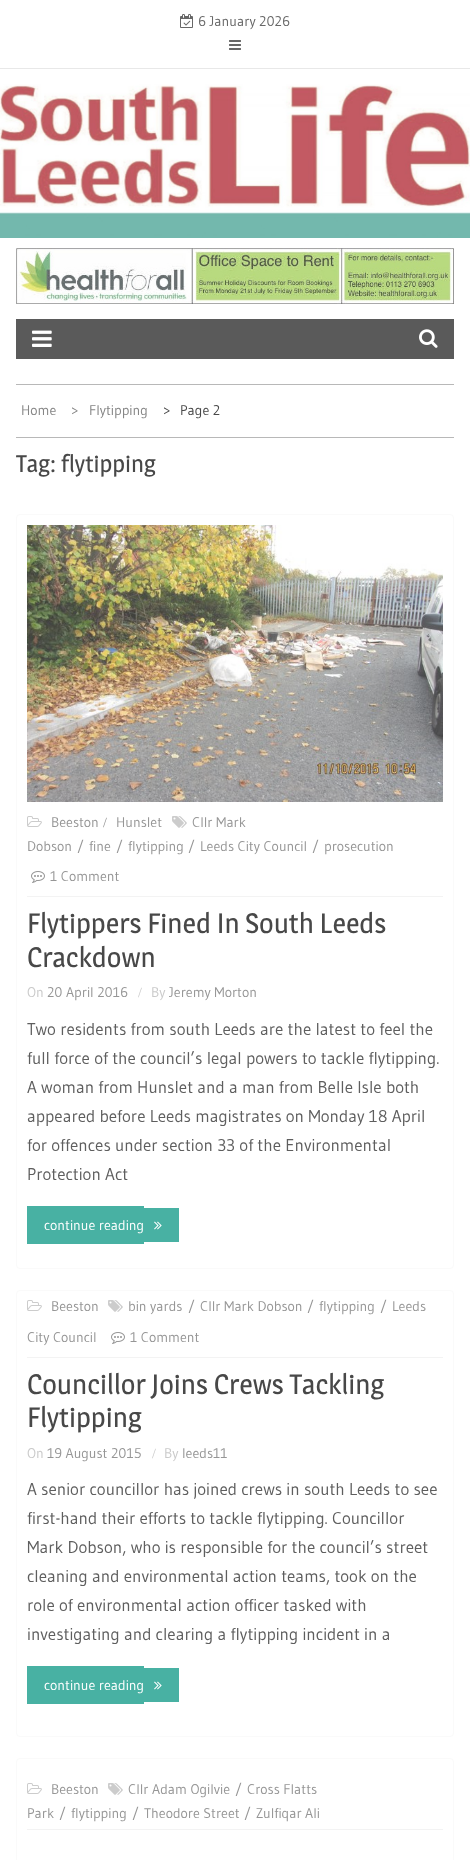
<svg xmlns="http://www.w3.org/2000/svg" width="470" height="1860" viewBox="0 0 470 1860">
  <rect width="100%" height="100%" fill="rgb(255,255,255)"/>
  <rect x="0" y="68" width="470" height="1" fill="rgb(232,232,232)"/>
  <image x="180" y="14" width="13" height="14" href="pic1.png"/>
  <text x="198" y="26" font-family="Gudea" font-size="14" fill="rgb(103,103,103)">6 January 2026</text>
  <image x="229" y="40" width="12" height="10" href="pic2.png"/>
  <image x="0" y="84" width="470" height="154" href="pic3.png"/>
  <image x="16" y="248" width="438" height="56" href="pic4.png"/>
  <rect x="16" y="319" width="438" height="40" fill="rgb(90,90,90)"/>
  <image x="32" y="330" width="20" height="17" href="pic5.png"/>
  <image x="419" y="329" width="19" height="19" href="pic6.png"/>
  <rect x="16" y="384" width="438" height="1" fill="rgb(184,184,184)"/>
  <rect x="16" y="437" width="438" height="1" fill="rgb(184,184,184)"/>
  <g font-family="Gudea" font-size="14" fill="rgb(133,133,133)">
    <text x="21" y="415">Home</text>
    <text x="71" y="415">&gt;</text>
    <text x="89" y="415">Flytipping</text>
  </g>
  <g font-family="Gudea" font-size="14" fill="rgb(72,72,72)">
    <text x="163" y="415">&gt;</text>
    <text x="180" y="415">Page 2</text>
  </g>
  <text x="16" y="472" font-family="Magra" font-size="24" fill="rgb(72,72,72)">Tag: flytipping</text>
  <rect x="16.5" y="514.5" width="437" height="754" rx="3.5" fill="none" stroke="rgb(250,250,250)"/>
  <image x="27" y="525" width="416" height="277" href="pic7.png"/>
  <rect x="27" y="896" width="416" height="1" fill="rgb(243,243,243)"/>
  <image x="27" y="816" width="15" height="11" href="pic8.png"/>
  <text x="51" y="827" font-family="Gudea" font-size="14" fill="rgb(150,150,150)">Beeston</text>
  <text x="103" y="827" font-family="Liberation Serif" font-size="14" fill="rgb(150,150,150)">/</text>
  <text x="116" y="827" font-family="Gudea" font-size="14" fill="rgb(150,150,150)">Hunslet</text>
  <image x="172" y="816" width="15" height="12" href="pic9.png"/>
  <g font-family="Gudea" font-size="14" fill="rgb(150,150,150)">
    <text x="192" y="827">Cllr Mark</text>
    <text x="27" y="851">Dobson</text>
    <text x="77" y="851">/</text>
    <text x="89" y="851">fine</text>
    <text x="116" y="851">/</text>
    <text x="128" y="851">flytipping</text>
    <text x="188" y="851">/</text>
    <text x="200" y="851">Leeds City Council</text>
    <text x="312" y="851">/</text>
    <text x="324" y="851">prosecution</text>
  </g>
  <image x="31" y="871" width="14" height="12" href="pic10.png"/>
  <text x="50" y="881" font-family="Gudea" font-size="14" fill="rgb(150,150,150)">1 Comment</text>
  <g font-family="Magra" font-size="28" fill="rgb(72,72,72)">
    <text>
      <tspan x="27" y="933">Flytippers Fined In South Leeds</tspan>
      <tspan x="27" y="967">Crackdown</tspan>
    </text>
  </g>
  <text x="27" y="997" font-family="Gudea" font-size="14" fill="rgb(202,202,202)">On</text>
  <text x="47" y="997" font-family="Gudea" font-size="14" fill="rgb(150,150,150)">20 April 2016</text>
  <text x="138" y="997" font-family="Liberation Serif" font-size="14" fill="rgb(202,202,202)">/</text>
  <text x="151" y="997" font-family="Gudea" font-size="14" fill="rgb(202,202,202)">By</text>
  <text x="169" y="997" font-family="Gudea" font-size="14" fill="rgb(150,150,150)">Jeremy Morton</text>
  <g font-family="Gudea" font-size="17" fill="rgb(94,94,94)">
    <text>
      <tspan x="27" y="1035">Two residents from south Leeds are the latest to feel the</tspan>
      <tspan x="27" y="1064">full force of the council’s legal powers to tackle flytipping.</tspan>
      <tspan x="27" y="1093">A woman from Hunslet and a man from Belle Isle both</tspan>
      <tspan x="27" y="1122">appeared before Leeds magistrates on Monday 18 April</tspan>
      <tspan x="27" y="1151">for offences under section 33 of the Environmental</tspan>
      <tspan x="27" y="1180">Protection Act</tspan>
    </text>
  </g>
  <rect x="27" y="1206" width="117" height="38" fill="rgb(72,177,163)"/>
  <text x="44" y="1230" font-family="Gudea" font-size="14" fill="rgb(255,255,255)">continue reading</text>
  <rect x="144" y="1208" width="35" height="34" fill="rgb(72,177,163)"/>
  <image x="154" y="1221" width="8" height="9" href="pic11.png"/>
  <rect x="16.5" y="1290.5" width="437" height="446" rx="3.5" fill="none" stroke="rgb(250,250,250)"/>
  <rect x="27" y="1357" width="416" height="1" fill="rgb(243,243,243)"/>
  <image x="27" y="1300" width="15" height="11" href="pic8.png"/>
  <text x="51" y="1311" font-family="Gudea" font-size="14" fill="rgb(150,150,150)">Beeston</text>
  <image x="108" y="1300" width="15" height="12" href="pic9.png"/>
  <g font-family="Gudea" font-size="14" fill="rgb(150,150,150)">
    <text x="128" y="1311">bin yards</text>
    <text x="188" y="1311">/</text>
    <text x="200" y="1311">Cllr Mark Dobson</text>
    <text x="307" y="1311">/</text>
    <text x="319" y="1311">flytipping</text>
    <text x="380" y="1311">/</text>
    <text x="392" y="1311">Leeds</text>
    <text x="27" y="1342">City Council</text>
  </g>
  <image x="111" y="1332" width="14" height="12" href="pic10.png"/>
  <text x="130" y="1342" font-family="Gudea" font-size="14" fill="rgb(150,150,150)">1 Comment</text>
  <g font-family="Magra" font-size="28" fill="rgb(72,72,72)">
    <text>
      <tspan x="27" y="1394">Councillor Joins Crews Tackling</tspan>
      <tspan x="27" y="1427">Flytipping</tspan>
    </text>
  </g>
  <text x="27" y="1458" font-family="Gudea" font-size="14" fill="rgb(202,202,202)">On</text>
  <text x="47" y="1458" font-family="Gudea" font-size="14" fill="rgb(150,150,150)">19 August 2015</text>
  <text x="152" y="1458" font-family="Liberation Serif" font-size="14" fill="rgb(202,202,202)">/</text>
  <text x="164" y="1458" font-family="Gudea" font-size="14" fill="rgb(202,202,202)">By</text>
  <text x="182" y="1458" font-family="Gudea" font-size="14" fill="rgb(150,150,150)">leeds11</text>
  <g font-family="Gudea" font-size="17" fill="rgb(94,94,94)">
    <text>
      <tspan x="27" y="1495">A senior councillor has joined crews in south Leeds to see</tspan>
      <tspan x="27" y="1524">first-hand their efforts to tackle flytipping. Councillor</tspan>
      <tspan x="27" y="1553">Mark Dobson, who is responsible for the council’s street</tspan>
      <tspan x="27" y="1582">cleaning and environmental action teams, took on the</tspan>
      <tspan x="27" y="1611">role of environmental action officer tasked with</tspan>
      <tspan x="27" y="1640">investigating and clearing a flytipping incident in a</tspan>
    </text>
  </g>
  <rect x="27" y="1666" width="117" height="38" fill="rgb(72,177,163)"/>
  <text x="44" y="1690" font-family="Gudea" font-size="14" fill="rgb(255,255,255)">continue reading</text>
  <rect x="144" y="1668" width="35" height="34" fill="rgb(72,177,163)"/>
  <image x="154" y="1681" width="8" height="9" href="pic11.png"/>
  <rect x="16.5" y="1758.5" width="437" height="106" rx="3.5" fill="none" stroke="rgb(250,250,250)"/>
  <rect x="27" y="1829" width="416" height="1" fill="rgb(243,243,243)"/>
  <image x="27" y="1783" width="15" height="11" href="pic8.png"/>
  <text x="51" y="1794" font-family="Gudea" font-size="14" fill="rgb(150,150,150)">Beeston</text>
  <image x="108" y="1783" width="15" height="12" href="pic9.png"/>
  <g font-family="Gudea" font-size="14" fill="rgb(150,150,150)">
    <text x="128" y="1794">Cllr Adam Ogilvie</text>
    <text x="235" y="1794">/</text>
    <text x="247" y="1794">Cross Flatts</text>
    <text x="27" y="1818">Park</text>
    <text x="59" y="1818">/</text>
    <text x="71" y="1818">flytipping</text>
    <text x="132" y="1818">/</text>
    <text x="144" y="1818">Theodore Street</text>
    <text x="244" y="1818">/</text>
    <text x="256" y="1818">Zulfiqar Ali</text>
  </g>
</svg>
